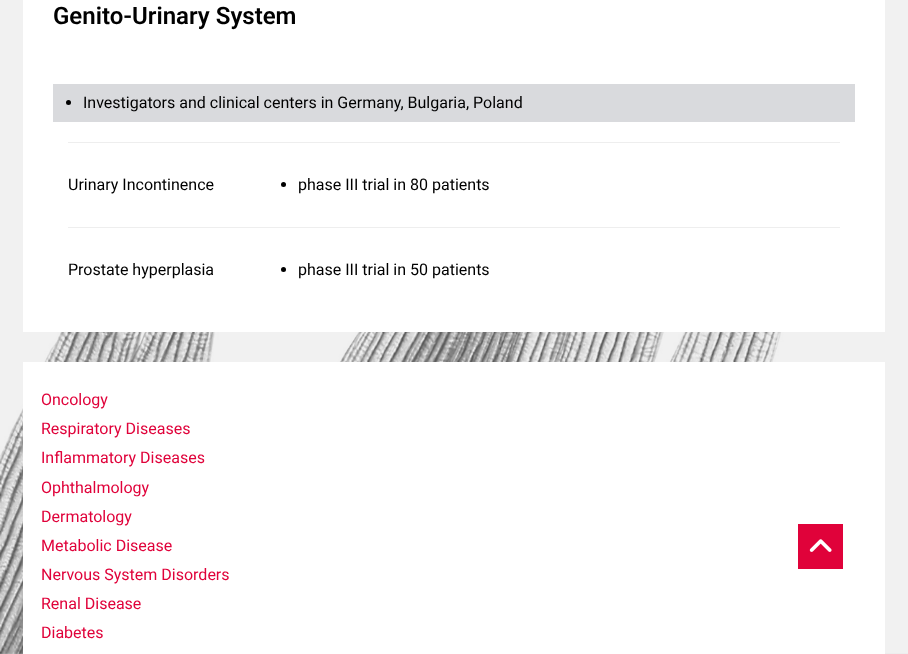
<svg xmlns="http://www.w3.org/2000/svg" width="908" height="654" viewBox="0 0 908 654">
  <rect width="100%" height="100%" fill="rgb(219,219,219)"/>
  <image x="0" y="0" width="908" height="654" href="pic1.png"/>
  <rect x="23" y="0" width="862" height="332" fill="rgb(255,255,255)"/>
  <text x="53" y="24" font-family="Roboto" font-size="24" font-weight="600" fill="rgb(0,0,0)">Genito-Urinary System</text>
  <rect x="53" y="84" width="802" height="38" fill="rgb(217,218,221)"/>
  <circle cx="68.5" cy="102.5" r="2.5" fill="rgb(0,0,0)"/>
  <text x="83" y="108" font-family="Roboto" font-size="16" fill="rgb(0,0,0)">Investigators and clinical centers in Germany, Bulgaria, Poland</text>
  <rect x="68" y="142" width="772" height="1" fill="rgb(238,238,238)"/>
  <text x="68" y="190" font-family="Roboto" font-size="16" fill="rgb(0,0,0)">Urinary Incontinence</text>
  <circle cx="283.5" cy="184.5" r="2.5" fill="rgb(0,0,0)"/>
  <text x="298" y="190" font-family="Roboto" font-size="16" fill="rgb(0,0,0)">phase III trial in 80 patients</text>
  <rect x="68" y="227" width="772" height="1" fill="rgb(238,238,238)"/>
  <text x="68" y="275" font-family="Roboto" font-size="16" fill="rgb(0,0,0)">Prostate hyperplasia</text>
  <circle cx="283.5" cy="269.5" r="2.5" fill="rgb(0,0,0)"/>
  <text x="298" y="275" font-family="Roboto" font-size="16" fill="rgb(0,0,0)">phase III trial in 50 patients</text>
  <rect x="23" y="362" width="862" height="292" fill="rgb(255,255,255)"/>
  <g font-family="Roboto" font-size="16" fill="rgb(224,2,58)">
    <text>
      <tspan x="41" y="405">Oncology</tspan>
      <tspan x="41" y="434">Respiratory Diseases</tspan>
      <tspan x="41" y="463">Inflammatory Diseases</tspan>
      <tspan x="41" y="493">Ophthalmology</tspan>
      <tspan x="41" y="522">Dermatology</tspan>
      <tspan x="41" y="551">Metabolic Disease</tspan>
      <tspan x="41" y="580">Nervous System Disorders</tspan>
      <tspan x="41" y="609">Renal Disease</tspan>
      <tspan x="41" y="638">Diabetes</tspan>
    </text>
  </g>
  <rect x="798" y="524" width="45" height="45" fill="rgb(224,2,58)"/>
  <image x="809" y="539" width="23" height="13" href="pic2.png"/>
</svg>
